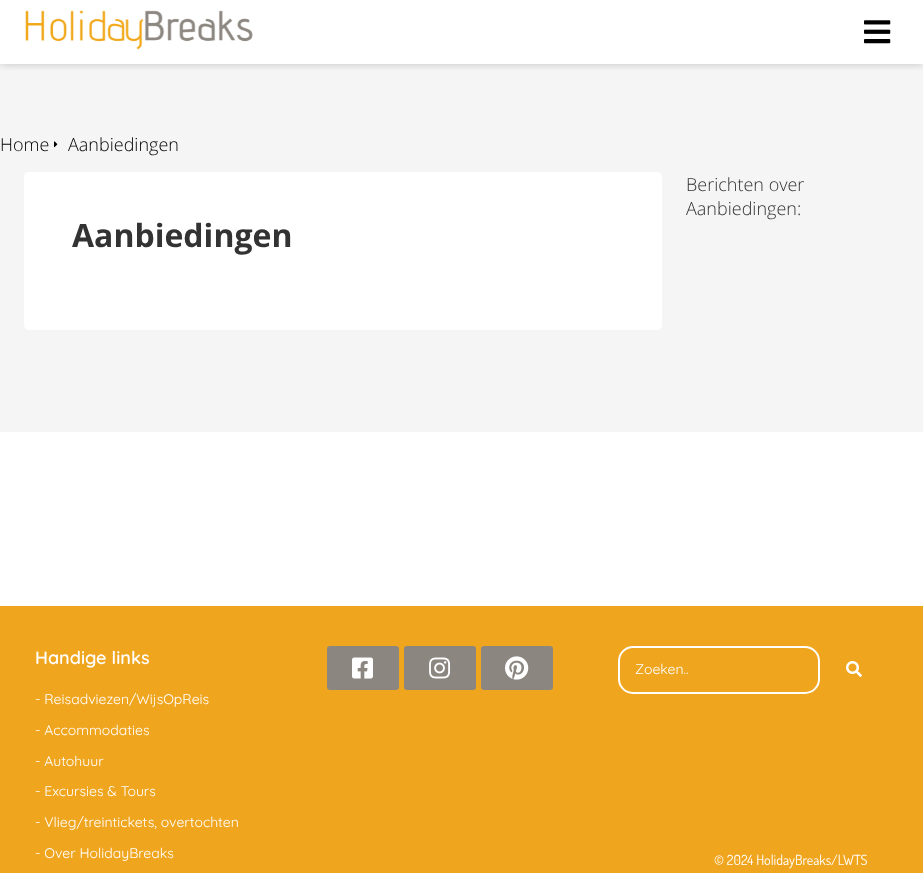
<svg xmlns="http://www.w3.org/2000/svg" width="923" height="873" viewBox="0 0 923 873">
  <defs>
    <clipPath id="clip1"><rect x="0" y="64" width="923" height="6"/></clipPath>
  </defs>
  <rect width="100%" height="100%" fill="rgb(255,255,255)"/>
  <rect x="0" y="64" width="923" height="368" fill="rgb(245,245,245)"/>
  <g clip-path="url(#clip1)">
    <rect x="0" y="0" width="923" height="64" fill="rgba(0,0,0,0.2)" filter="blur(5px)"/>
  </g>
  <image x="25" y="10" width="228" height="40" href="pic1.png"/>
  <image x="864" y="20" width="27" height="24" href="pic2.png"/>
  <text x="0" y="151" font-family="Open Sans" font-size="18" font-weight="300" fill="rgb(0,0,0)">Home</text>
  <image x="54" y="141" width="4" height="7" href="pic3.png"/>
  <text x="68" y="151" font-family="Open Sans" font-size="18" font-weight="300" fill="rgb(0,0,0)">Aanbiedingen</text>
  <g font-family="Open Sans" font-size="18" font-weight="300" fill="rgb(51,51,51)">
    <text>
      <tspan x="686" y="191">Berichten over</tspan>
      <tspan x="686" y="215">Aanbiedingen:</tspan>
    </text>
  </g>
  <rect x="24" y="172" width="638" height="158" rx="5" fill="rgb(255,255,255)"/>
  <text x="72" y="247" font-family="Open Sans" font-size="32" font-weight="bold" fill="rgb(51,51,51)">Aanbiedingen</text>
  <rect x="0" y="606" width="923" height="267" fill="rgb(240,165,30)"/>
  <text x="35" y="664" font-family="Quicksand" font-size="18" font-weight="600" fill="rgb(255,255,255)">Handige links</text>
  <g font-family="Quicksand" font-size="14" fill="rgb(255,255,255)">
    <text x="35" y="704">- Reisadviezen/WijsOpReis</text>
    <text x="35" y="735">- Accommodaties</text>
    <text x="35" y="766">- Autohuur</text>
    <text x="35" y="796">- Excursies &amp; Tours</text>
    <text x="35" y="827">- Vlieg/treintickets, overtochten</text>
    <text x="35" y="858">- Over HolidayBreaks</text>
  </g>
  <rect x="327" y="646" width="72" height="44" rx="3" fill="rgb(140,134,128)"/>
  <image x="352" y="657" width="21" height="22" href="pic4.png"/>
  <rect x="404" y="646" width="72" height="44" rx="3" fill="rgb(140,134,128)"/>
  <image x="429" y="657" width="22" height="22" href="pic5.png"/>
  <rect x="481" y="646" width="72" height="44" rx="3" fill="rgb(140,134,128)"/>
  <image x="505" y="656" width="24" height="24" href="pic6.png"/>
  <rect x="619" y="647" width="200" height="46" rx="14" fill="none" stroke="rgb(255,255,255)" stroke-width="2"/>
  <text x="635" y="674" font-family="Quicksand" font-size="14" fill="rgb(255,255,255)">Zoeken..</text>
  <image x="846" y="661" width="16" height="16" href="pic7.png"/>
  <text x="714" y="865" font-family="Dosis" font-size="14" fill="rgb(255,255,255)">© 2024 HolidayBreaks/LWTS</text>
</svg>
